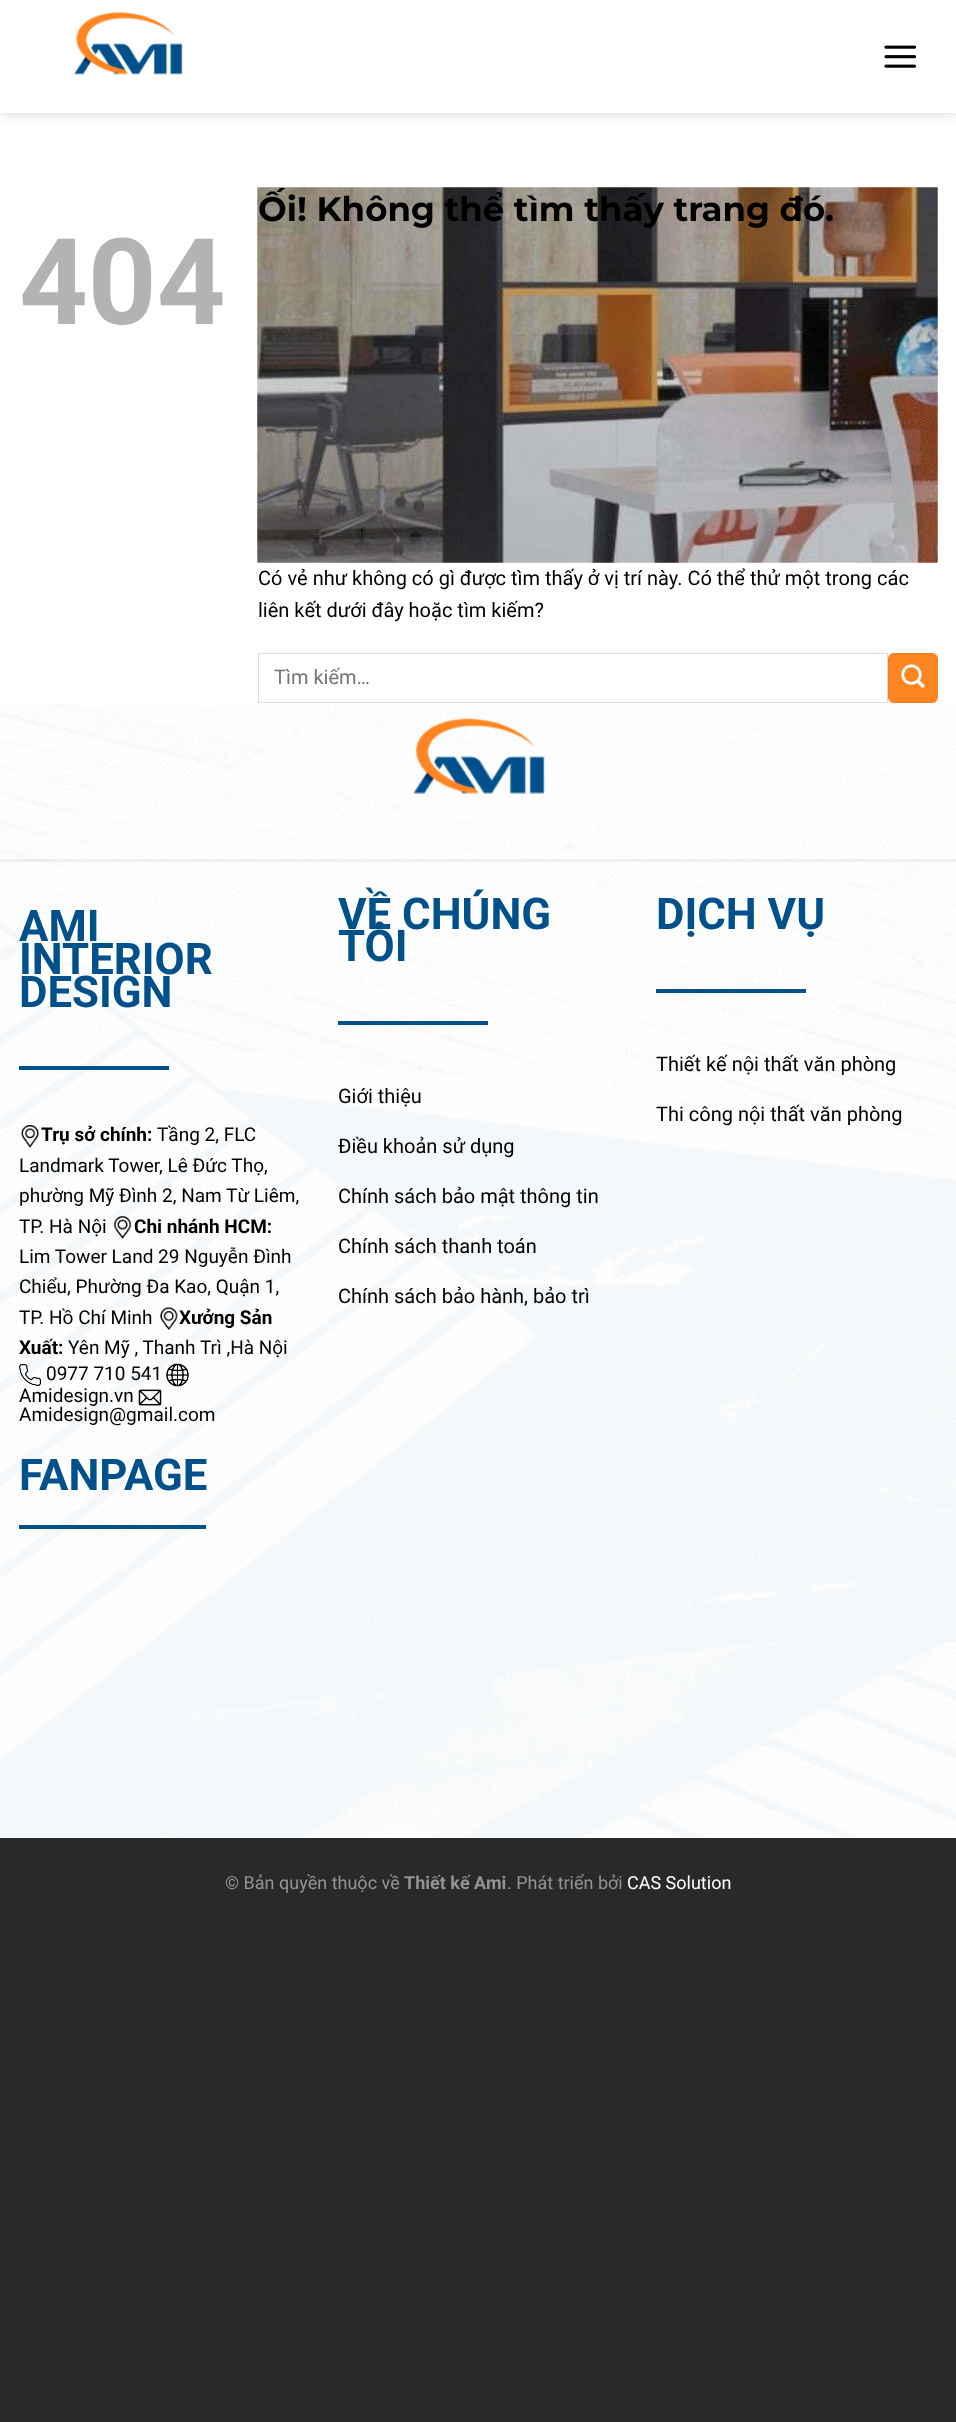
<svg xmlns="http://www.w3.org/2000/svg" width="956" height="2422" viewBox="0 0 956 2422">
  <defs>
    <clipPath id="clip1"><path d="M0 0H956V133H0ZM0 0H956V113H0Z" clip-rule="evenodd"/></clipPath>
  </defs>
  <rect width="100%" height="100%" fill="rgb(41,41,41)"/>
  <rect x="0" y="0" width="956" height="1838" fill="rgb(255,255,255)"/>
  <g clip-path="url(#clip1)">
    <rect x="1" y="1" width="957" height="113" fill="rgba(0,0,0,0.15)" filter="blur(6px)"/>
  </g>
  <image x="74" y="12" width="109" height="63" href="pic1.png"/>
  <image x="884" y="45" width="33" height="23" href="pic2.png"/>
  <rect x="0" y="112" width="956" height="1" fill="rgba(255,255,255,0.9)"/>
  <text x="19" y="324" font-family="Roboto" font-size="120" font-weight="bold" fill="rgb(179,179,179)">404</text>
  <image x="257" y="187" width="681" height="376" href="pic3.png"/>
  <image x="257" y="187" width="681" height="376" href="pic4.png"/>
  <text x="258" y="221" font-family="Montserrat" font-size="34" font-weight="bold" fill="rgb(0,0,0)">Ối! Không thể tìm thấy trang đó.</text>
  <g font-family="Roboto" font-size="20" fill="rgb(0,0,0)">
    <text>
      <tspan x="258" y="585">Có vẻ như không có gì được tìm thấy ở vị trí này. Có thể thử một trong các</tspan>
      <tspan x="258" y="617">liên kết dưới đây hoặc tìm kiếm?</tspan>
    </text>
  </g>
  <rect x="258.5" y="653.5" width="629" height="49" fill="none" stroke="rgb(221,221,221)"/>
  <text x="274" y="684" font-family="Roboto" font-size="20" fill="rgb(117,117,117)">Tìm kiếm…</text>
  <rect x="888" y="653" width="50" height="50" rx="6" fill="rgb(255,133,34)"/>
  <rect x="888.5" y="653.5" width="49" height="49" fill="none" stroke="rgba(0,0,0,0.05)"/>
  <image x="901" y="664" width="24" height="24" href="pic5.png"/>
  <image x="0" y="704" width="956" height="1134" href="pic6.png"/>
  <image x="413" y="718" width="132" height="76" href="pic7.png"/>
  <rect x="0" y="859" width="956" height="3" fill="rgba(168,164,164,0.15)"/>
  <g font-family="Roboto" font-size="43.75" font-weight="bold" fill="rgb(0,81,139)">
    <text>
      <tspan x="19" y="941">AMI</tspan>
      <tspan x="19" y="974">INTERIOR</tspan>
      <tspan x="19" y="1007">DESIGN</tspan>
    </text>
  </g>
  <rect x="19" y="1066" width="150" height="4" fill="rgb(0,81,139)"/>
  <image x="21" y="1125" width="18" height="23" href="pic8.png"/>
  <text x="41" y="1141" font-family="Roboto" font-size="19" font-weight="bold" fill="rgb(0,0,0)">Trụ sở chính:</text>
  <g font-family="Roboto" font-size="19" fill="rgb(0,0,0)">
    <text x="157" y="1141">Tầng 2, FLC</text>
    <text>
      <tspan x="19" y="1172">Landmark Tower, Lê Đức Thọ,</tspan>
      <tspan x="19" y="1202">phường Mỹ Đình 2, Nam Từ Liêm,</tspan>
      <tspan x="19" y="1233">TP. Hà Nội</tspan>
    </text>
  </g>
  <image x="113" y="1216" width="19" height="23" href="pic9.png"/>
  <text x="134" y="1233" font-family="Roboto" font-size="19" font-weight="bold" fill="rgb(0,0,0)">Chi nhánh HCM:</text>
  <g font-family="Roboto" font-size="19" fill="rgb(0,0,0)">
    <text>
      <tspan x="19" y="1263">Lim Tower Land 29 Nguyễn Đình</tspan>
      <tspan x="19" y="1293">Chiểu, Phường Đa Kao, Quận 1,</tspan>
      <tspan x="19" y="1324">TP. Hồ Chí Minh</tspan>
    </text>
  </g>
  <image x="160" y="1307" width="18" height="23" href="pic10.png"/>
  <g font-family="Roboto" font-size="19" font-weight="bold" fill="rgb(0,0,0)">
    <text x="179" y="1324">Xưởng Sản</text>
    <text x="19" y="1354">Xuất:</text>
  </g>
  <text x="68" y="1354" font-family="Roboto" font-size="19" fill="rgb(0,0,0)">Yên Mỹ , Thanh Trì ,Hà Nội</text>
  <image x="19" y="1364" width="22" height="22" href="pic11.png"/>
  <text x="46" y="1380" font-family="Roboto" font-size="19" fill="rgb(0,0,0)">0977 710 541</text>
  <image x="166" y="1363" width="23" height="24" href="pic12.png"/>
  <text x="19" y="1402" font-family="Roboto" font-size="19" fill="rgb(0,0,0)">Amidesign.vn</text>
  <image x="138" y="1389" width="24" height="17" href="pic13.png"/>
  <text x="19" y="1421" font-family="Roboto" font-size="19" fill="rgb(0,0,0)">Amidesign@gmail.com</text>
  <g font-family="Roboto" font-size="43.75" font-weight="bold" fill="rgb(0,81,139)">
    <text>
      <tspan x="338" y="929">VỀ CHÚNG</tspan>
      <tspan x="338" y="961">TÔI</tspan>
    </text>
  </g>
  <rect x="338" y="1021" width="150" height="4" fill="rgb(0,81,139)"/>
  <g font-family="Roboto" font-size="20" fill="rgb(0,0,0)">
    <text x="338" y="1103">Giới thiệu</text>
    <text x="338" y="1153">Điều khoản sử dụng</text>
    <text x="338" y="1203">Chính sách bảo mật thông tin</text>
    <text x="338" y="1253">Chính sách thanh toán</text>
    <text x="338" y="1303">Chính sách bảo hành, bảo trì</text>
  </g>
  <text x="656" y="929" font-family="Roboto" font-size="43.75" font-weight="bold" fill="rgb(0,81,139)">DỊCH VỤ</text>
  <rect x="656" y="989" width="150" height="4" fill="rgb(0,81,139)"/>
  <g font-family="Roboto" font-size="20" fill="rgb(0,0,0)">
    <text x="656" y="1071">Thiết kế nội thất văn phòng</text>
    <text x="656" y="1121">Thi công nội thất văn phòng</text>
  </g>
  <text x="19" y="1490" font-family="Roboto" font-size="43.75" font-weight="bold" fill="rgb(0,81,139)">FANPAGE</text>
  <rect x="19" y="1525" width="187" height="4" fill="rgb(0,81,139)"/>
  <text x="225" y="1889" font-family="Roboto" font-size="18" fill="rgb(148,148,148)">© Bản quyền thuộc về</text>
  <text x="404" y="1889" font-family="Roboto" font-size="18" font-weight="bold" fill="rgb(148,148,148)">Thiết kế Ami</text>
  <text x="507" y="1889" font-family="Roboto" font-size="18" fill="rgb(148,148,148)">. Phát triển bởi</text>
  <text x="627" y="1889" font-family="Roboto" font-size="18" fill="rgb(255,255,255)">CAS Solution</text>
</svg>
